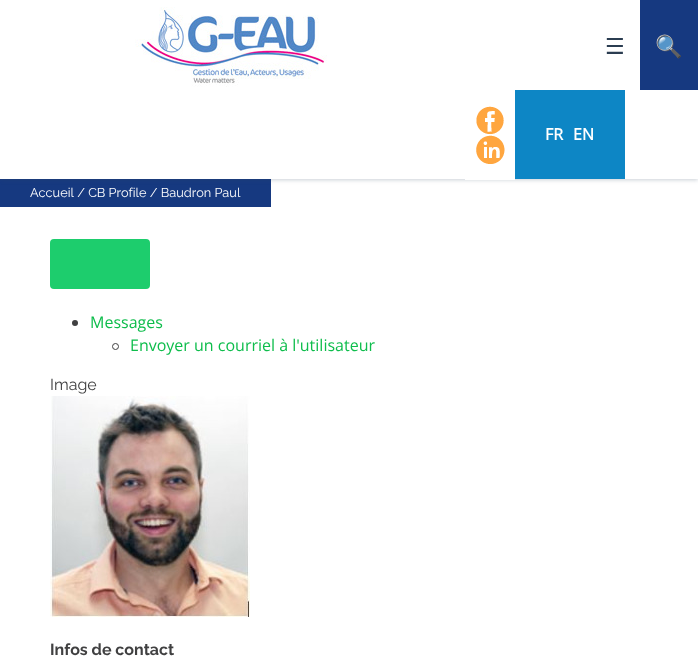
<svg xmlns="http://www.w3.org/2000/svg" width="698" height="665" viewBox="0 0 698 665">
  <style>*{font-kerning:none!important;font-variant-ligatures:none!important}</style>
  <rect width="100%" height="100%" fill="rgb(255,255,255)"/>
  <rect x="0" y="179" width="271" height="28" fill="rgb(22,57,128)"/>
  <rect x="0" y="1" width="698" height="179" fill="rgba(52,73,95,0.26)" filter="blur(2px)"/>
  <rect x="0" y="0" width="698" height="179" fill="rgb(255,255,255)"/>
  <image x="135" y="7" width="192" height="80" href="pic1.png"/>
  <text x="605" y="54" font-family="DejaVu Sans" font-size="22" fill="rgb(43,61,81)">☰</text>
  <rect x="465" y="179" width="50" height="1" fill="rgb(255,255,255)"/>
  <image x="476" y="106" width="28" height="28" href="pic2.png"/>
  <image x="476" y="135" width="29" height="29" href="pic3.png"/>
  <rect x="515" y="90" width="110" height="89" fill="rgb(13,134,197)"/>
  <g font-family="Open Sans" font-size="16" font-weight="bold" fill="rgb(255,255,255)">
    <text x="545" y="140">FR</text>
    <text x="573" y="140">EN</text>
  </g>
  <rect x="640" y="0" width="58" height="90" fill="rgb(22,57,128)"/>
  <text x="655" y="54" font-family="Noto Color Emoji" font-size="22" fill="rgb(255,255,255)">🔍</text>
  <text x="30" y="197" font-family="Raleway" font-size="12.75" fill="rgb(255,255,255)">Accueil / CB Profile / Baudron Paul</text>
  <rect x="50" y="239" width="100" height="50" rx="4" fill="rgb(29,205,109)"/>
  <circle cx="75" cy="323" r="3" fill="rgb(64,64,65)"/>
  <text x="90" y="328" font-family="Open Sans" font-size="16" fill="rgb(14,189,76)">Messages</text>
  <circle cx="115.5" cy="346.5" r="3" fill="none" stroke="rgb(64,64,65)"/>
  <text x="130" y="351" font-family="Open Sans" font-size="16" fill="rgb(14,189,76)">Envoyer un courriel à l'utilisateur</text>
  <text x="50" y="390" font-family="Raleway" font-size="16" fill="rgb(64,64,65)">Image</text>
  <image x="50" y="396" width="200" height="221" href="pic4.png"/>
  <text x="50" y="655" font-family="Raleway" font-size="16" font-weight="bold" fill="rgb(64,64,65)">Infos de contact</text>
</svg>
